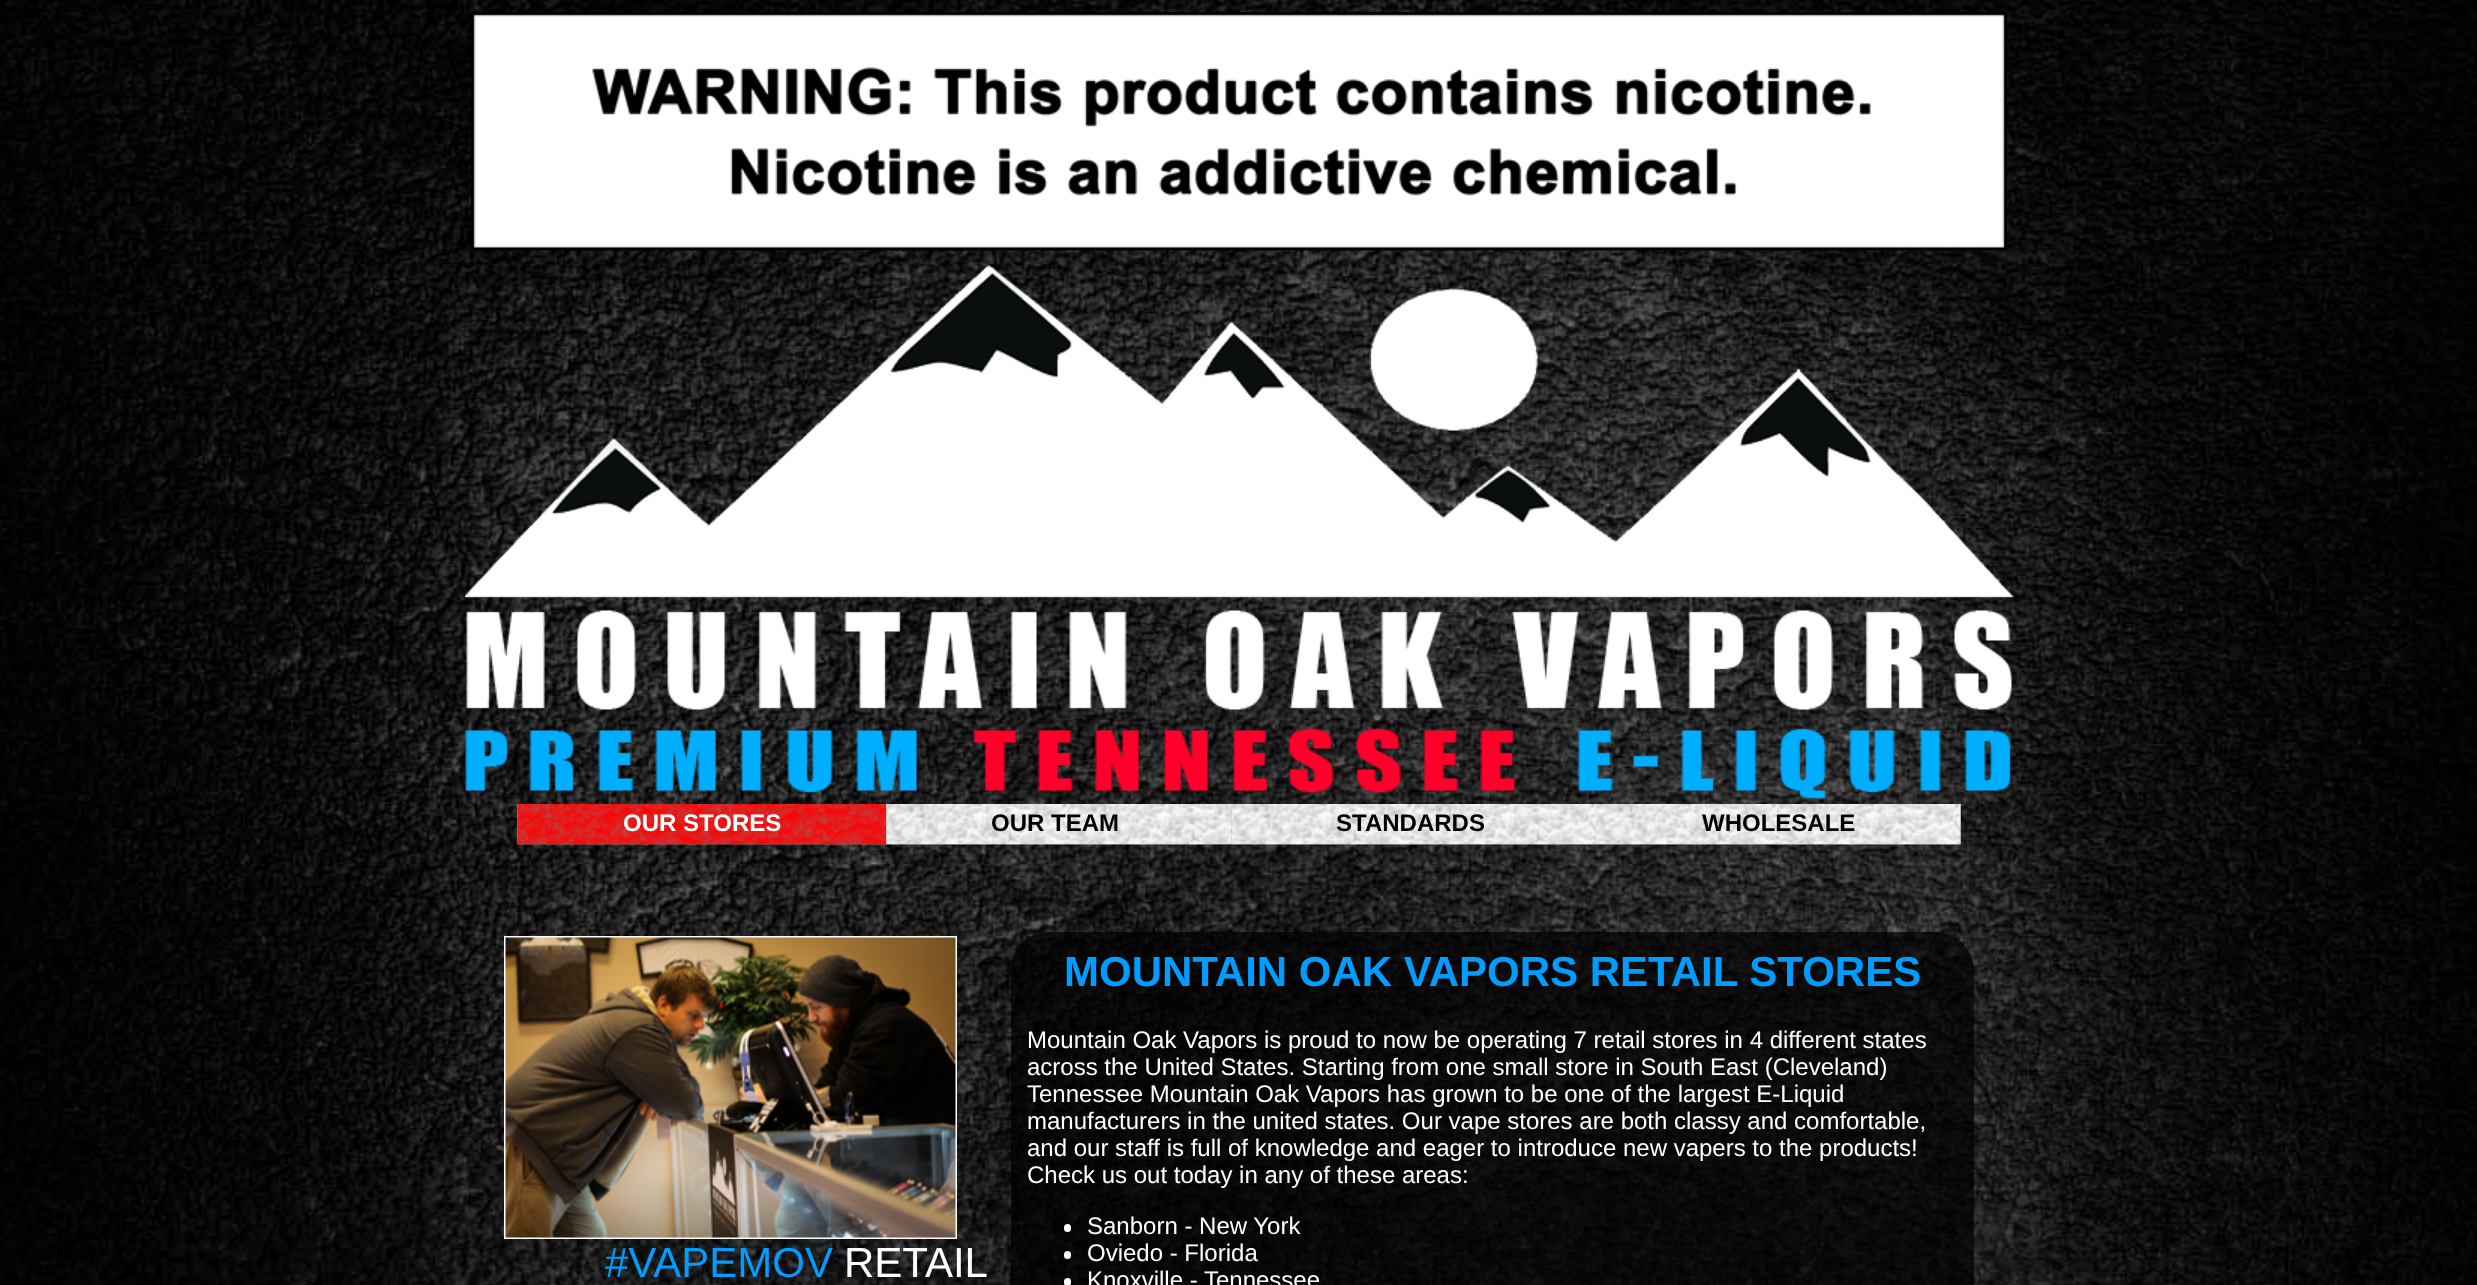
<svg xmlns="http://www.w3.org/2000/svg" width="2477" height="1285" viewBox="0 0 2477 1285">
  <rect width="100%" height="100%" fill="rgb(255,255,255)"/>
  <image x="0" y="0" width="2477" height="1285" href="pic1.png"/>
  <image x="471" y="12" width="1536" height="239" href="pic2.png"/>
  <image x="465" y="264" width="1550" height="535" href="pic3.png"/>
  <image x="517" y="804" width="370" height="41" href="pic4.png"/>
  <image x="517" y="804" width="370" height="41" href="pic5.png"/>
  <text x="623" y="831" font-family="Liberation Sans" font-size="24" font-weight="bold" fill="rgb(255,255,255)">OUR STORES</text>
  <image x="886" y="804" width="346" height="41" href="pic6.png"/>
  <image x="886" y="804" width="346" height="41" href="pic7.png"/>
  <text x="991" y="831" font-family="Liberation Sans" font-size="24" font-weight="bold" fill="rgb(0,0,0)">OUR TEAM</text>
  <image x="1231" y="804" width="365" height="41" href="pic8.png"/>
  <image x="1231" y="804" width="365" height="41" href="pic9.png"/>
  <text x="1336" y="831" font-family="Liberation Sans" font-size="24" font-weight="bold" fill="rgb(0,0,0)">STANDARDS</text>
  <image x="1596" y="804" width="365" height="41" href="pic10.png"/>
  <image x="1596" y="804" width="365" height="41" href="pic11.png"/>
  <text x="1702" y="831" font-family="Liberation Sans" font-size="24" font-weight="bold" fill="rgb(0,0,0)">WHOLESALE</text>
  <rect x="505" y="937" width="451" height="301" fill="none" stroke="rgb(255,255,255)" stroke-width="2"/>
  <image x="505" y="937" width="451" height="301" href="pic12.png"/>
  <text x="605" y="1277" font-family="Liberation Sans" font-size="42" fill="rgb(0,156,255)">#VAPEMOV</text>
  <text x="844" y="1277" font-family="Liberation Sans" font-size="42" fill="rgb(255,255,255)">RETAIL</text>
  <rect x="1011" y="932" width="963" height="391" rx="38" fill="rgba(0,0,0,0.7)"/>
  <text x="1064" y="986" font-family="Liberation Sans" font-size="42" font-weight="bold" fill="rgb(0,156,255)">MOUNTAIN OAK VAPORS RETAIL STORES</text>
  <g font-family="Liberation Sans" font-size="24" fill="rgb(255,255,255)">
    <text>
      <tspan x="1027" y="1048">Mountain Oak Vapors is proud to now be operating 7 retail stores in 4 different states</tspan>
      <tspan x="1027" y="1075">across the United States. Starting from one small store in South East (Cleveland)</tspan>
      <tspan x="1027" y="1102">Tennessee Mountain Oak Vapors has grown to be one of the largest E-Liquid</tspan>
      <tspan x="1027" y="1129">manufacturers in the united states. Our vape stores are both classy and comfortable,</tspan>
      <tspan x="1027" y="1156">and our staff is full of knowledge and eager to introduce new vapers to the products!</tspan>
      <tspan x="1027" y="1183">Check us out today in any of these areas:</tspan>
    </text>
  </g>
  <rect x="1064" y="1224" width="7" height="8" rx="3.5" fill="rgb(255,255,255)"/>
  <text x="1087" y="1234" font-family="Liberation Sans" font-size="24" fill="rgb(255,255,255)">Sanborn - New York</text>
  <rect x="1064" y="1251" width="7" height="8" rx="3.5" fill="rgb(255,255,255)"/>
  <text x="1087" y="1261" font-family="Liberation Sans" font-size="24" fill="rgb(255,255,255)">Oviedo - Florida</text>
  <rect x="1064" y="1278" width="7" height="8" rx="3.5" fill="rgb(255,255,255)"/>
  <text x="1087" y="1288" font-family="Liberation Sans" font-size="24" fill="rgb(255,255,255)">Knoxville - Tennessee</text>
</svg>
